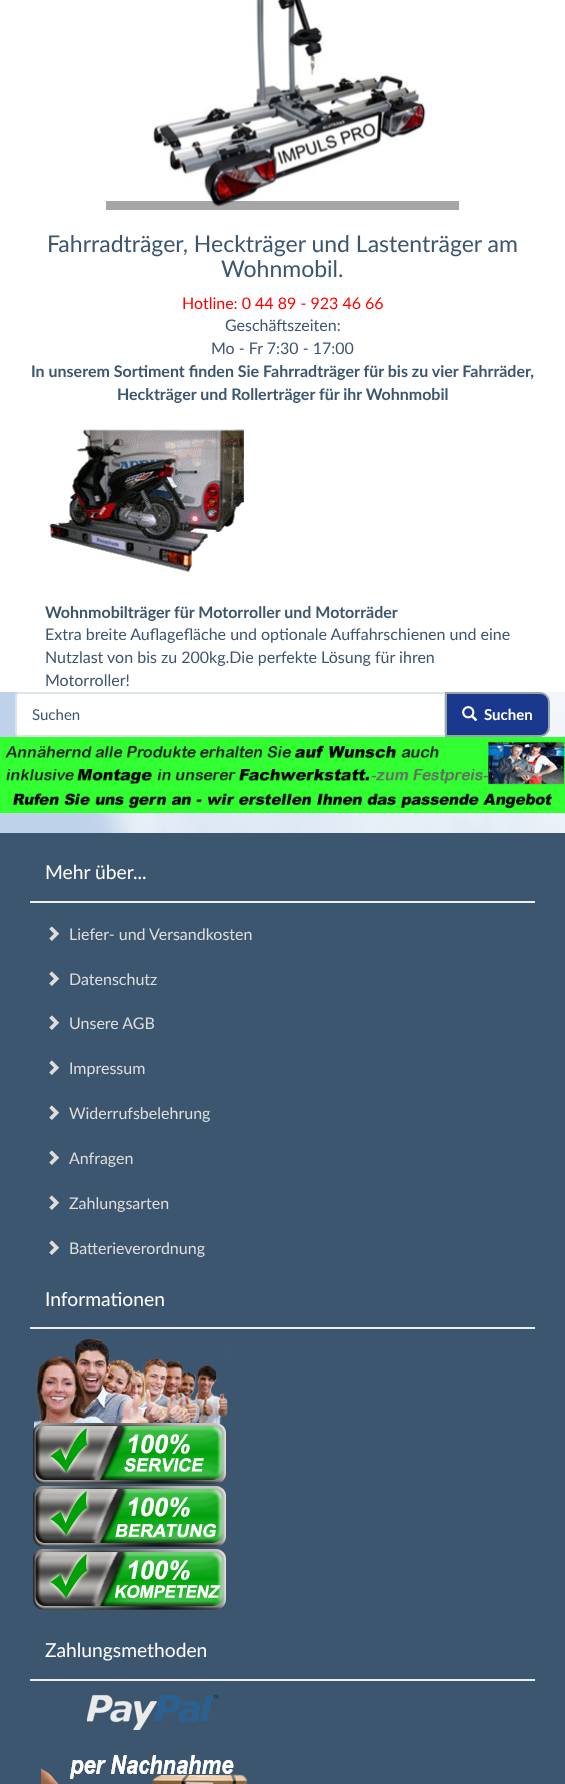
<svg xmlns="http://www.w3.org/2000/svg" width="565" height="1784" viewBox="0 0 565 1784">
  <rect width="100%" height="100%" fill="rgb(190,210,234)"/>
  <image x="88" y="692" width="477" height="141" href="pic1.png"/>
  <rect x="0" y="0" width="565" height="692" fill="rgb(255,255,255)"/>
  <image x="153" y="0" width="273" height="207" href="pic2.png"/>
  <rect x="106" y="201" width="353" height="9" fill="rgba(0,0,0,0.35)"/>
  <g font-family="Lato" font-size="23" fill="rgb(61,86,111)">
    <text x="47" y="252">Fahrradträger, Heckträger und Lastenträger am</text>
    <text x="221" y="277">Wohnmobil.</text>
  </g>
  <text x="182" y="309" font-family="Lato" font-size="16" fill="rgb(255,0,0)">Hotline: 0 44 89 - 923 46 66</text>
  <g font-family="Lato" font-size="16" fill="rgb(61,86,111)">
    <text x="225" y="331">Geschäftszeiten:</text>
    <text x="211" y="354">Mo - Fr 7:30 - 17:00</text>
  </g>
  <g font-family="Lato" font-size="16" font-weight="bold" fill="rgb(61,86,111)">
    <text x="31" y="377">In unserem Sortiment finden Sie Fahrradträger für bis zu vier Fahrräder,</text>
    <text x="117" y="400">Heckträger und Rollerträger für ihr Wohnmobil</text>
  </g>
  <image x="49" y="429" width="195" height="143" href="pic3.png"/>
  <text x="45" y="618" font-family="Lato" font-size="16" font-weight="bold" fill="rgb(61,86,111)">Wohnmobilträger für Motorroller und Motorräder</text>
  <g font-family="Lato" font-size="16" fill="rgb(61,86,111)">
    <text>
      <tspan x="45" y="640">Extra breite Auflagefläche und optionale Auffahrschienen und eine</tspan>
      <tspan x="45" y="663">Nutzlast von bis zu 200kg.Die perfekte Lösung für ihren</tspan>
      <tspan x="45" y="686">Motorroller!</tspan>
    </text>
  </g>
  <path d="M19 693H445V736H19C17.5 736 16 734.5 16 733V696C16 694.5 17.5 693 19 693Z" fill="rgb(255,255,255)" stroke="rgb(220,228,236)" stroke-width="2"/>
  <text x="32" y="720" font-family="Lato" font-size="15" fill="rgb(61,86,111)">Suchen</text>
  <path d="M446 693H540C545 693 549 697 549 702V727C549 732 545 736 540 736H446Z" fill="rgb(26,56,142)" stroke="rgb(149,165,166)" stroke-width="2"/>
  <image x="462" y="706" width="16" height="15" href="pic4.png"/>
  <text x="484" y="720" font-family="Lato" font-size="15" font-weight="bold" fill="rgb(255,255,255)">Suchen</text>
  <image x="0" y="737" width="565" height="76" href="pic5.png"/>
  <rect x="0" y="833" width="565" height="951" fill="rgb(61,86,111)"/>
  <rect x="30" y="901" width="505" height="2" fill="rgb(238,238,238)"/>
  <text x="45" y="879" font-family="Lato" font-size="19.25" fill="rgb(255,255,255)">Mehr über...</text>
  <image x="49" y="926" width="11" height="15" href="pic6.png"/>
  <text x="69" y="940" font-family="Lato" font-size="16" fill="rgb(221,221,221)">Liefer- und Versandkosten</text>
  <image x="49" y="971" width="11" height="15" href="pic6.png"/>
  <text x="69" y="985" font-family="Lato" font-size="16" fill="rgb(221,221,221)">Datenschutz</text>
  <image x="49" y="1015" width="11" height="15" href="pic6.png"/>
  <text x="69" y="1029" font-family="Lato" font-size="16" fill="rgb(221,221,221)">Unsere AGB</text>
  <image x="49" y="1060" width="11" height="15" href="pic6.png"/>
  <text x="69" y="1074" font-family="Lato" font-size="16" fill="rgb(221,221,221)">Impressum</text>
  <image x="49" y="1105" width="11" height="15" href="pic6.png"/>
  <text x="69" y="1119" font-family="Lato" font-size="16" fill="rgb(221,221,221)">Widerrufsbelehrung</text>
  <image x="49" y="1150" width="11" height="15" href="pic6.png"/>
  <text x="69" y="1164" font-family="Lato" font-size="16" fill="rgb(221,221,221)">Anfragen</text>
  <image x="49" y="1195" width="11" height="15" href="pic6.png"/>
  <text x="69" y="1209" font-family="Lato" font-size="16" fill="rgb(221,221,221)">Zahlungsarten</text>
  <image x="49" y="1240" width="11" height="15" href="pic6.png"/>
  <text x="69" y="1254" font-family="Lato" font-size="16" fill="rgb(221,221,221)">Batterieverordnung</text>
  <rect x="30" y="1327" width="505" height="2" fill="rgb(238,238,238)"/>
  <text x="45" y="1306" font-family="Lato" font-size="19.25" fill="rgb(255,255,255)">Informationen</text>
  <image x="33" y="1339" width="197" height="271" href="pic7.png"/>
  <rect x="30" y="1679" width="505" height="2" fill="rgb(238,238,238)"/>
  <text x="45" y="1657" font-family="Lato" font-size="19.25" fill="rgb(255,255,255)">Zahlungsmethoden</text>
  <image x="41" y="1695" width="207" height="89" href="pic8.png"/>
</svg>
